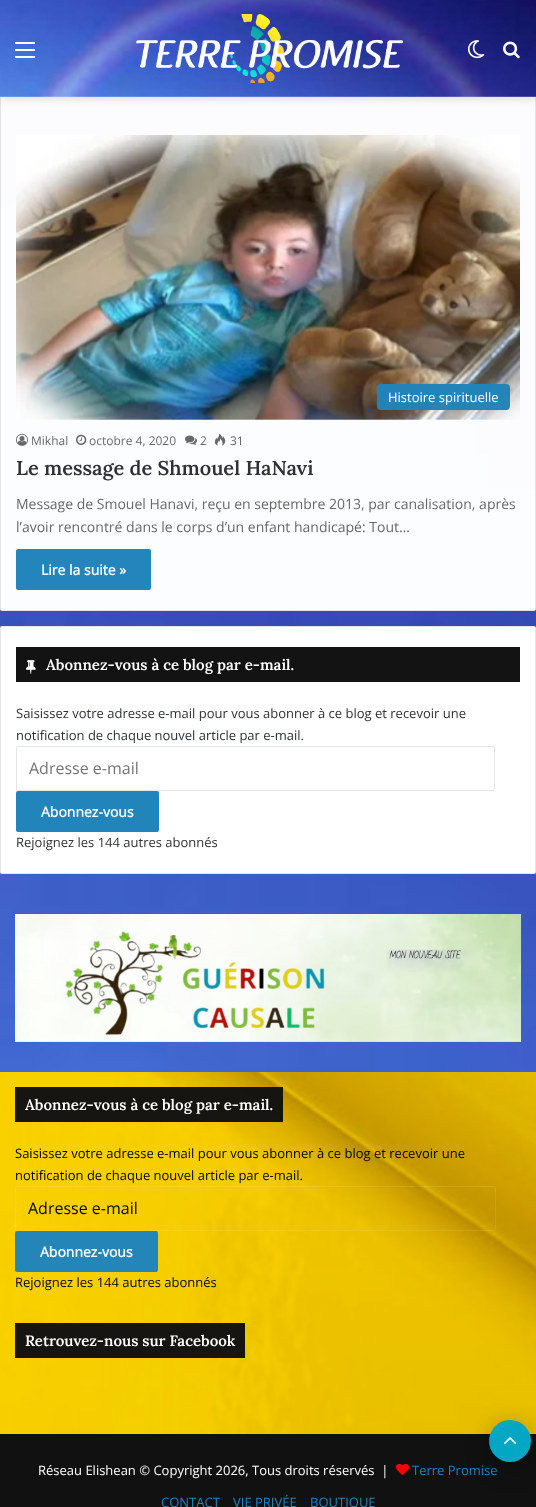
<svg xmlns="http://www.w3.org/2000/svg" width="536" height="1507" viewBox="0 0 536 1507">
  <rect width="100%" height="100%" fill="rgb(255,255,255)"/>
  <image x="0" y="96" width="536" height="976" href="pic1.png"/>
  <rect x="0" y="-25" width="536" height="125" rx="2" fill="rgba(0,0,0,0.05)" filter="blur(7.5px)"/>
  <path d="M0 95H536V609C536 610 535 611 534 611H2C1 611 0 610 0 609Z" fill="rgba(255,255,255,0.99)"/>
  <rect x="535" y="95" width="1" height="515" fill="rgba(0,0,0,0.1)"/>
  <rect x="0" y="95" width="1" height="515" fill="rgba(0,0,0,0.1)"/>
  <rect x="0" y="2" width="536" height="97" fill="rgba(99,99,99,0.2)" filter="blur(4px)"/>
  <image x="0" y="0" width="536" height="97" href="pic2.png"/>
  <rect x="15" y="49" width="20" height="2" fill="rgb(255,255,255)"/>
  <rect x="15" y="42" width="20" height="2" fill="rgb(255,255,255)"/>
  <rect x="15" y="56" width="20" height="2" fill="rgb(255,255,255)"/>
  <image x="136" y="14" width="268" height="69" href="pic3.png"/>
  <image x="468" y="40" width="17" height="19" href="pic4.png"/>
  <image x="503" y="41" width="17" height="18" href="pic5.png"/>
  <rect x="1" y="610" width="534" height="1" fill="rgba(0,0,0,0.1)"/>
  <image x="16" y="135" width="504" height="285" href="pic6.png"/>
  <rect x="377" y="384" width="133" height="26" rx="4" fill="rgba(33,132,186,0.99)"/>
  <text x="388" y="402" font-family="Open Sans" font-size="13" fill="rgb(253,254,254)">Histoire spirituelle</text>
  <image x="16" y="433" width="12" height="13" href="pic7.png"/>
  <text x="31" y="445" font-family="Open Sans" font-size="12" fill="rgb(104,104,104)">Mikhal</text>
  <image x="76" y="434" width="11" height="11" href="pic8.png"/>
  <text x="89" y="445" font-family="Open Sans" font-size="12" fill="rgb(104,104,104)">octobre 4, 2020</text>
  <image x="185" y="435" width="12" height="10" href="pic9.png"/>
  <text x="200" y="445" font-family="Open Sans" font-size="12" fill="rgb(104,104,104)">2</text>
  <image x="214" y="433" width="12" height="13" href="pic10.png"/>
  <text x="230" y="445" font-family="Open Sans" font-size="12" fill="rgb(104,104,104)">31</text>
  <text x="16" y="475" font-family="Lora" font-size="20" font-weight="600" fill="rgb(46,49,54)">Le message de Shmouel HaNavi</text>
  <g font-family="Open Sans" font-size="14" fill="rgb(104,104,104)">
    <text>
      <tspan x="16" y="509">Message de Smouel Hanavi, reçu en septembre 2013, par canalisation, après</tspan>
      <tspan x="16" y="532">l’avoir rencontré dans le corps d’un enfant handicapé: Tout…</tspan>
    </text>
  </g>
  <rect x="16" y="549" width="135" height="41" rx="2" fill="rgb(35,133,187)"/>
  <text x="41" y="575" font-family="Open Sans" font-size="14" font-weight="bold" fill="rgb(253,254,254)">Lire la suite »</text>
  <rect x="0" y="626" width="536" height="248" rx="2" fill="rgb(255,255,255)"/>
  <rect x="0.5" y="626.5" width="535" height="247" rx="1.5" fill="none" stroke="rgba(0,0,0,0.1)"/>
  <rect x="16" y="647" width="504" height="35" fill="rgb(19,19,19)"/>
  <image x="26" y="660" width="10" height="14" href="pic11.png"/>
  <text x="46" y="670" font-family="Lora" font-size="15" font-weight="600" fill="rgb(253,254,254)">Abonnez-vous à ce blog par e-mail.</text>
  <g font-family="Open Sans" font-size="13" fill="rgb(46,49,54)">
    <text>
      <tspan x="16" y="718">Saisissez votre adresse e-mail pour vous abonner à ce blog et recevoir une</tspan>
      <tspan x="16" y="740">notification de chaque nouvel article par e-mail.</tspan>
    </text>
  </g>
  <rect x="16.5" y="746.5" width="478" height="44" rx="1.5" fill="none" stroke="rgb(230,230,230)"/>
  <text x="29" y="774" font-family="Open Sans" font-size="16" fill="rgb(117,117,117)">Adresse e-mail</text>
  <rect x="16" y="791" width="143" height="41" rx="2" fill="rgb(33,132,186)"/>
  <text x="41" y="817" font-family="Open Sans" font-size="14" font-weight="bold" fill="rgb(253,254,254)">Abonnez-vous</text>
  <text x="16" y="847" font-family="Open Sans" font-size="13" fill="rgb(46,49,54)">Rejoignez les 144 autres abonnés</text>
  <image x="15" y="914" width="506" height="128" href="pic12.png"/>
  <image x="0" y="1072" width="536" height="362" href="pic13.png"/>
  <rect x="15" y="1087" width="268" height="35" fill="rgba(17,17,17,0.98)"/>
  <text x="25" y="1110" font-family="Lora" font-size="15" font-weight="600" fill="rgb(253,254,254)">Abonnez-vous à ce blog par e-mail.</text>
  <g font-family="Open Sans" font-size="13" fill="rgb(2,2,0)">
    <text>
      <tspan x="15" y="1158">Saisissez votre adresse e-mail pour vous abonner à ce blog et recevoir une</tspan>
      <tspan x="15" y="1180">notification de chaque nouvel article par e-mail.</tspan>
    </text>
  </g>
  <rect x="15.5" y="1186.5" width="480" height="44" rx="1.5" fill="none" stroke="rgba(255,255,255,0.1)"/>
  <text x="28" y="1214" font-family="Open Sans" font-size="16" fill="rgb(2,2,0)">Adresse e-mail</text>
  <rect x="15" y="1231" width="143" height="41" rx="2" fill="rgba(33,132,186,0.99)"/>
  <text x="40" y="1257" font-family="Open Sans" font-size="14" font-weight="bold" fill="rgb(253,254,254)">Abonnez-vous</text>
  <text x="15" y="1287" font-family="Open Sans" font-size="13" fill="rgb(2,2,0)">Rejoignez les 144 autres abonnés</text>
  <rect x="15" y="1323" width="230" height="35" fill="rgba(17,17,17,0.98)"/>
  <text x="25" y="1346" font-family="Lora" font-size="15" font-weight="600" fill="rgb(253,254,254)">Retrouvez-nous sur Facebook</text>
  <rect x="0" y="1434" width="536" height="73" fill="rgb(17,17,17)"/>
  <text x="38" y="1475" font-family="Open Sans" font-size="13" fill="rgb(253,254,254)" xml:space="preserve">Réseau Elishean © Copyright 2026, Tous droits réservés  |</text>
  <image x="396" y="1463" width="13" height="12" href="pic14.png"/>
  <g font-family="Open Sans" font-size="13" fill="rgb(33,132,186)">
    <text x="412" y="1475">Terre Promise</text>
    <text x="161" y="1507">CONTACT</text>
    <text x="233" y="1507">VIE PRIVÉE</text>
    <text x="310" y="1507">BOUTIQUE</text>
  </g>
  <rect x="489" y="1425" width="42" height="42" rx="21" fill="rgba(0,0,0,0.3)" filter="blur(12.5px)"/>
  <circle cx="510" cy="1441" r="21" fill="rgb(3,167,196)"/>
  <image x="504" y="1437" width="13" height="8" href="pic15.png"/>
</svg>
